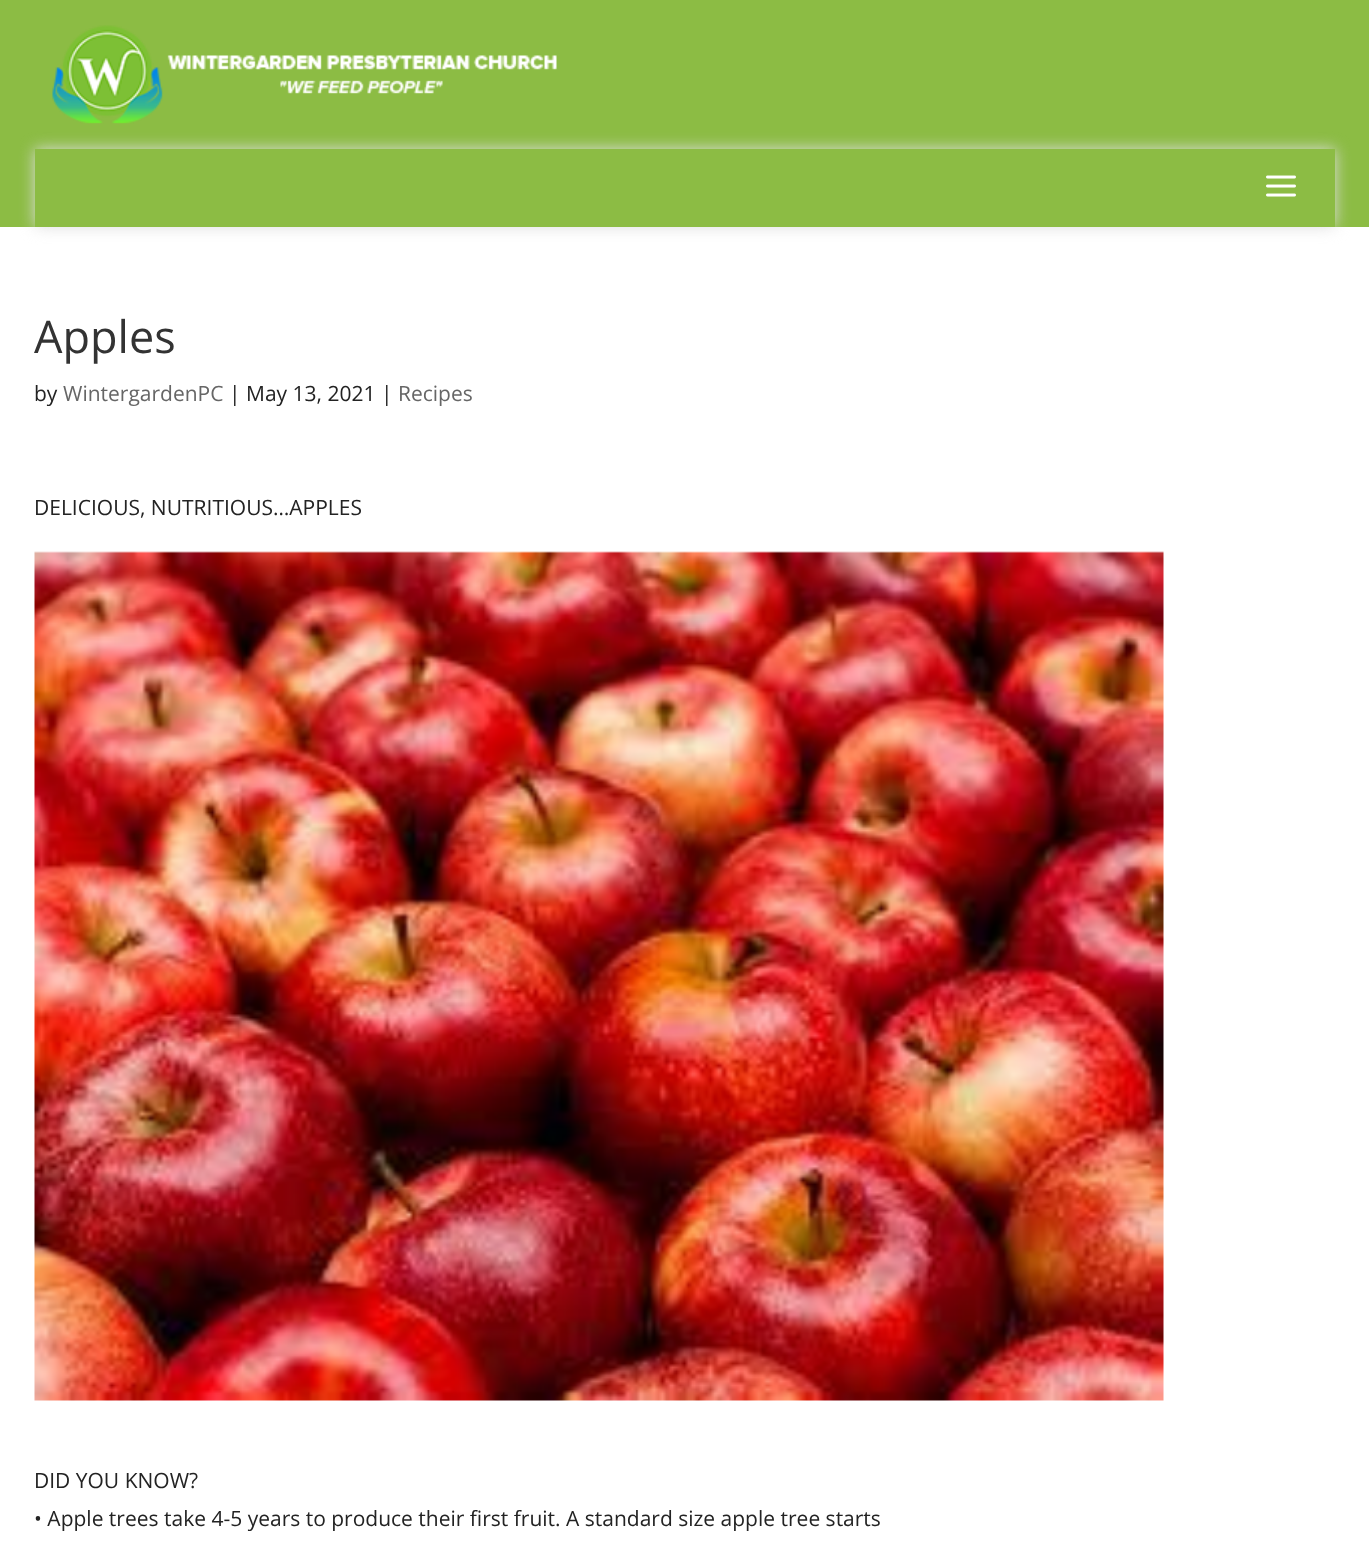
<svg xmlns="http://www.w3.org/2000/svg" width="1369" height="1541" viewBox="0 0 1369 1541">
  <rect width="100%" height="100%" fill="rgb(255,255,255)"/>
  <rect x="0" y="0" width="1369" height="227" fill="rgb(140,188,68)"/>
  <image x="52" y="25" width="505" height="99" href="pic1.png"/>
  <rect x="35" y="149" width="1300" height="78" fill="rgb(222,222,222)" filter="blur(7.5px)"/>
  <rect x="35" y="149" width="1300" height="78" fill="rgb(140,188,68)"/>
  <image x="1266" y="175" width="30" height="22" href="pic2.png"/>
  <text x="34" y="353" font-family="Open Sans" font-size="45" fill="rgb(51,51,51)">Apples</text>
  <text x="34" y="401" font-family="Open Sans" font-size="21" fill="rgb(35,35,35)">by</text>
  <text x="63" y="401" font-family="Open Sans" font-size="21" fill="rgb(102,102,102)">WintergardenPC</text>
  <text x="229" y="401" font-family="Open Sans" font-size="21" fill="rgb(35,35,35)">| May 13, 2021 |</text>
  <text x="398" y="401" font-family="Open Sans" font-size="21" fill="rgb(102,102,102)">Recipes</text>
  <text x="34" y="515" font-family="Open Sans" font-size="21" fill="rgb(35,35,35)">DELICIOUS, NUTRITIOUS…APPLES</text>
  <image x="34" y="551" width="1130" height="850" href="pic3.png"/>
  <g font-family="Open Sans" font-size="21" fill="rgb(35,35,35)">
    <text>
      <tspan x="34" y="1488">DID YOU KNOW?</tspan>
      <tspan x="34" y="1526">• Apple trees take 4-5 years to produce their first fruit. A standard size apple tree starts</tspan>
    </text>
  </g>
</svg>
